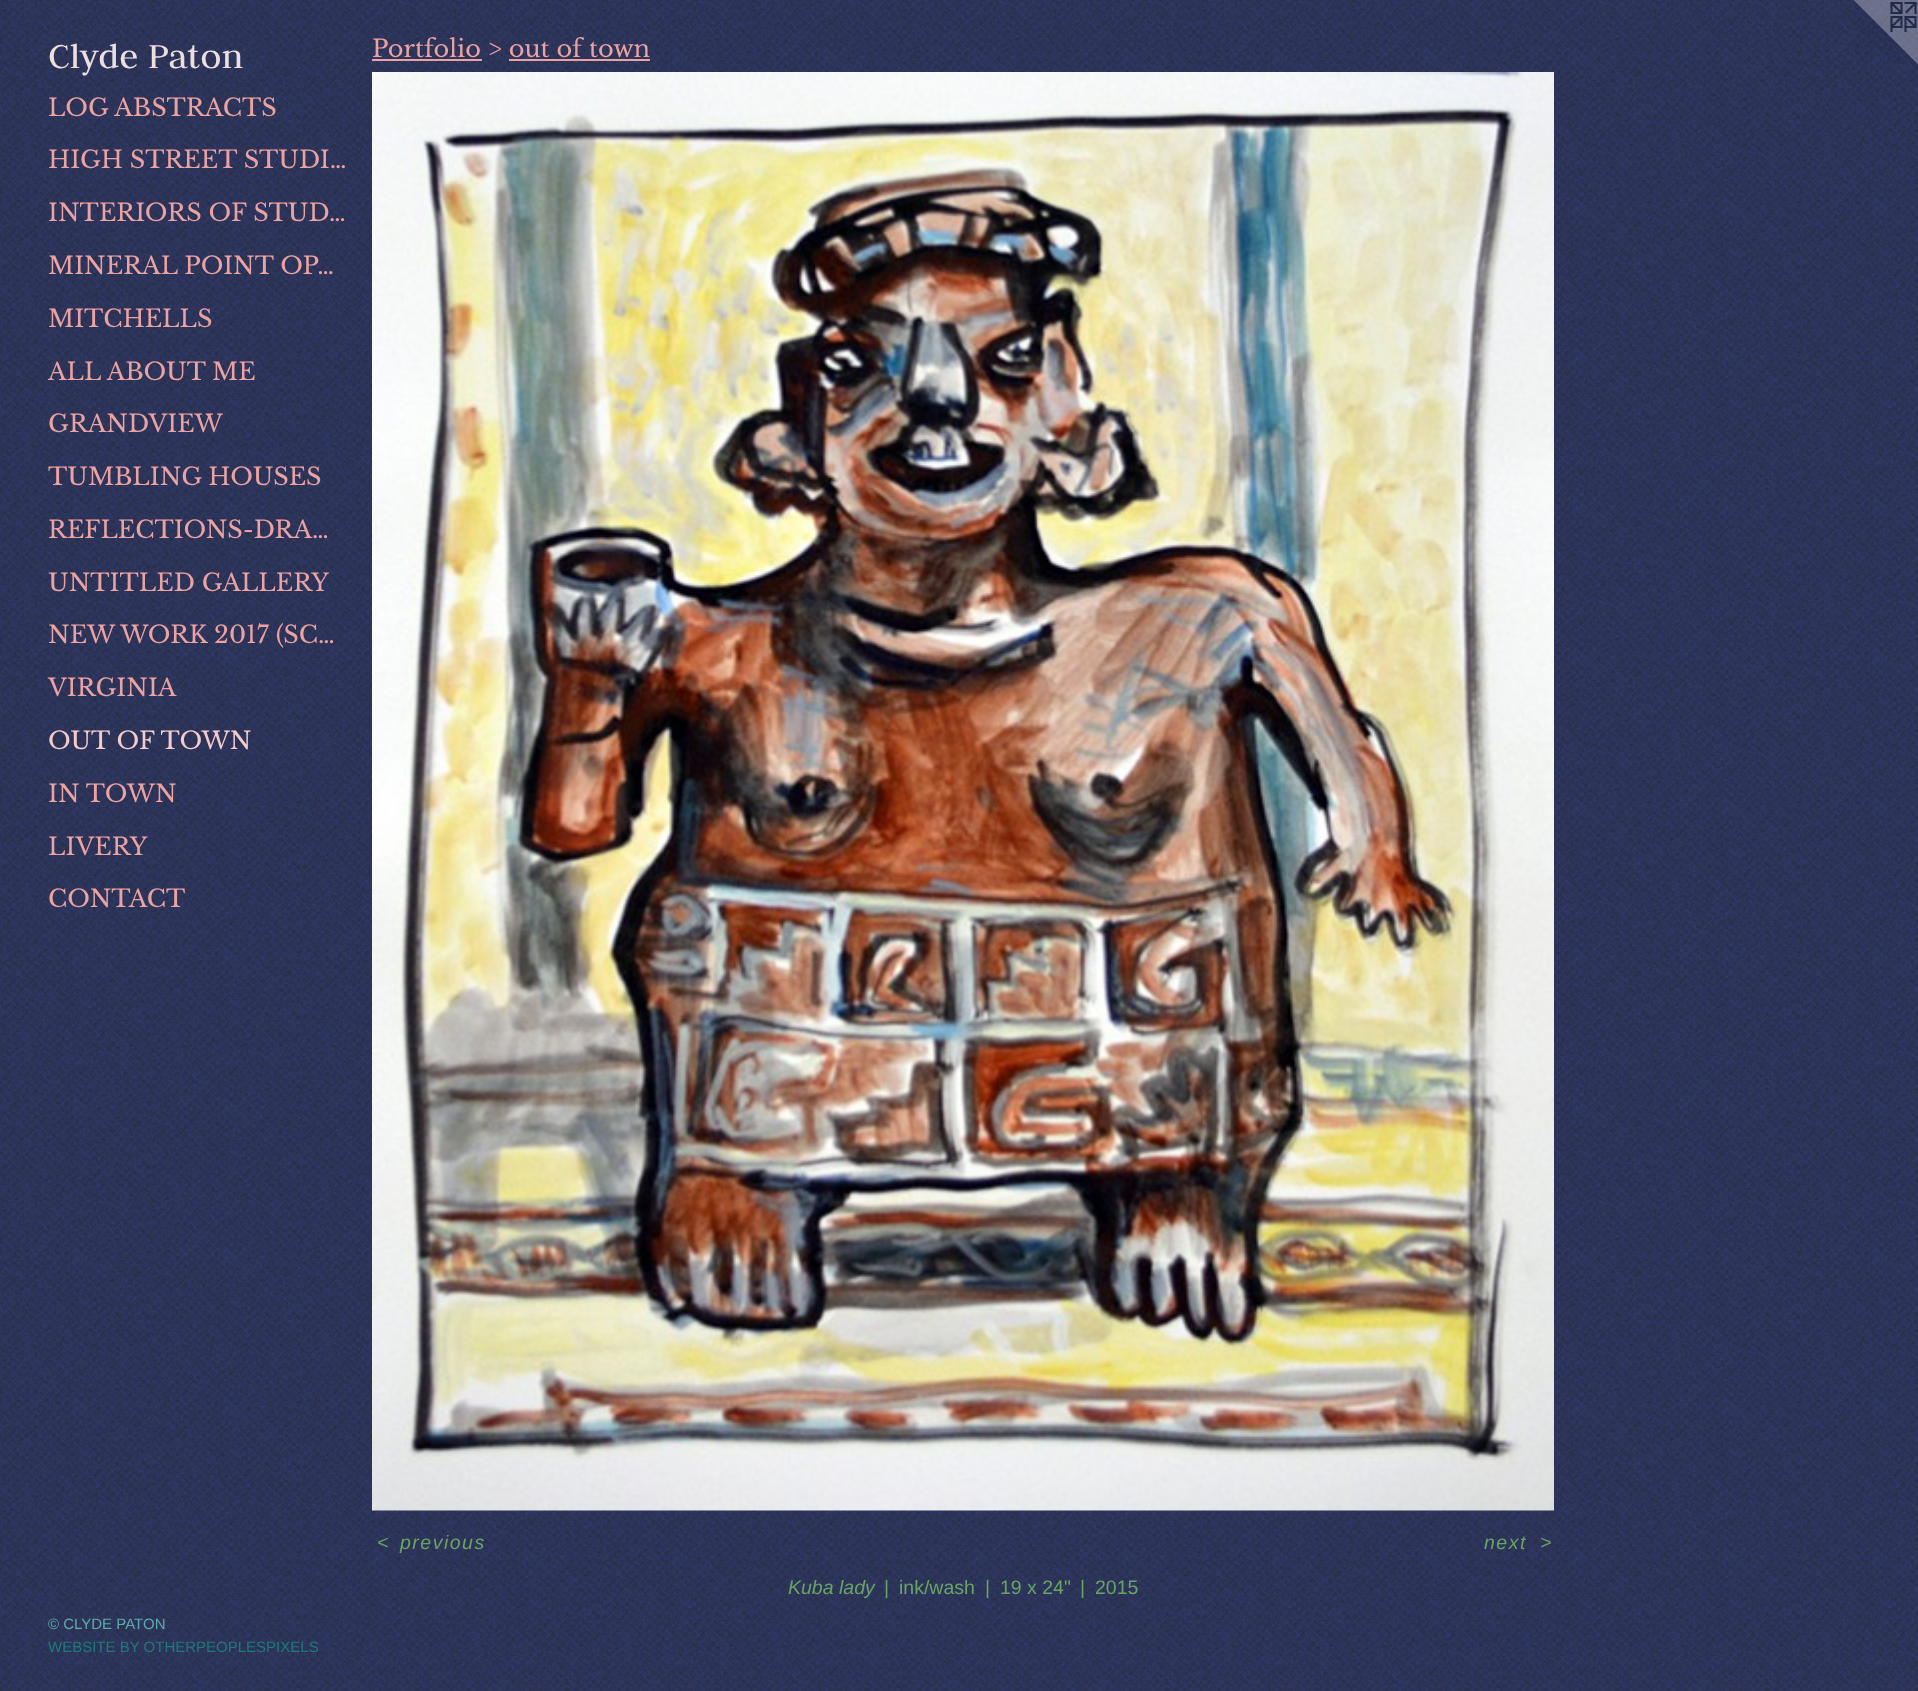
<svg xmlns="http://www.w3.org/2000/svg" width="1918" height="1691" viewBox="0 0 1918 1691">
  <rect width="100%" height="100%" fill="rgb(255,255,255)"/>
  <image x="0" y="0" width="1918" height="1691" href="pic1.png"/>
  <text x="48" y="68" font-family="Judson" font-size="39" fill="rgb(236,223,223)">Clyde Paton</text>
  <g font-family="Libre Baskerville" font-size="24" fill="rgb(235,162,162)">
    <text x="48" y="116">LOG ABSTRACTS</text>
    <text x="48" y="168">HIGH STREET STUDI…</text>
    <text x="48" y="221">INTERIORS OF STUD…</text>
    <text x="48" y="274">MINERAL POINT OP…</text>
    <text x="48" y="327">MITCHELLS</text>
    <text x="48" y="380">ALL ABOUT ME</text>
    <text x="48" y="432">GRANDVIEW</text>
    <text x="48" y="485">TUMBLING HOUSES</text>
    <text x="48" y="538">REFLECTIONS-DRA…</text>
    <text x="48" y="591">UNTITLED GALLERY</text>
    <text x="48" y="643">NEW WORK 2017 (SC…</text>
    <text x="48" y="696">VIRGINIA</text>
  </g>
  <text x="48" y="749" font-family="Libre Baskerville" font-size="24" fill="rgb(244,204,204)">OUT OF TOWN</text>
  <g font-family="Libre Baskerville" font-size="24" fill="rgb(235,162,162)">
    <text x="48" y="802">IN TOWN</text>
    <text x="48" y="855">LIVERY</text>
    <text x="48" y="907">CONTACT</text>
  </g>
  <text x="48" y="1629" font-family="Liberation Sans" font-size="15" fill="rgb(93,171,172)">© CLYDE PATON</text>
  <text x="48" y="1652" font-family="Liberation Sans" font-size="15" fill="rgb(30,122,123)">WEBSITE BY OTHERPEOPLESPIXELS</text>
  <text x="372" y="57" font-family="Libre Baskerville" font-size="24" fill="rgb(235,162,162)">Portfolio &gt; out of town</text>
  <rect x="372" y="59" width="110" height="2" fill="rgb(235,162,162)"/>
  <rect x="509" y="59" width="141" height="2" fill="rgb(235,162,162)"/>
  <image x="372" y="72" width="1182" height="1439" href="pic2.png"/>
  <g font-family="Liberation Sans" font-size="19.5" font-style="italic" letter-spacing="1.5" fill="rgb(105,163,102)">
    <text x="377" y="1549">&lt;</text>
    <text x="400" y="1549">previous</text>
    <text x="1484" y="1549">next</text>
    <text x="1540" y="1549">&gt;</text>
  </g>
  <text x="788" y="1594" font-family="Liberation Sans" font-size="19.5" font-style="italic" fill="rgb(105,163,102)">Kuba lady</text>
  <g font-family="Liberation Sans" font-size="19.5" fill="rgb(105,163,102)">
    <text x="884" y="1594">|</text>
    <text x="899" y="1594">ink/wash</text>
    <text x="985" y="1594">|</text>
    <text x="1000" y="1594">19 x 24"</text>
    <text x="1080" y="1594">|</text>
    <text x="1095" y="1594">2015</text>
  </g>
  <image x="1854" y="0" width="64" height="64" href="pic3.png"/>
</svg>
